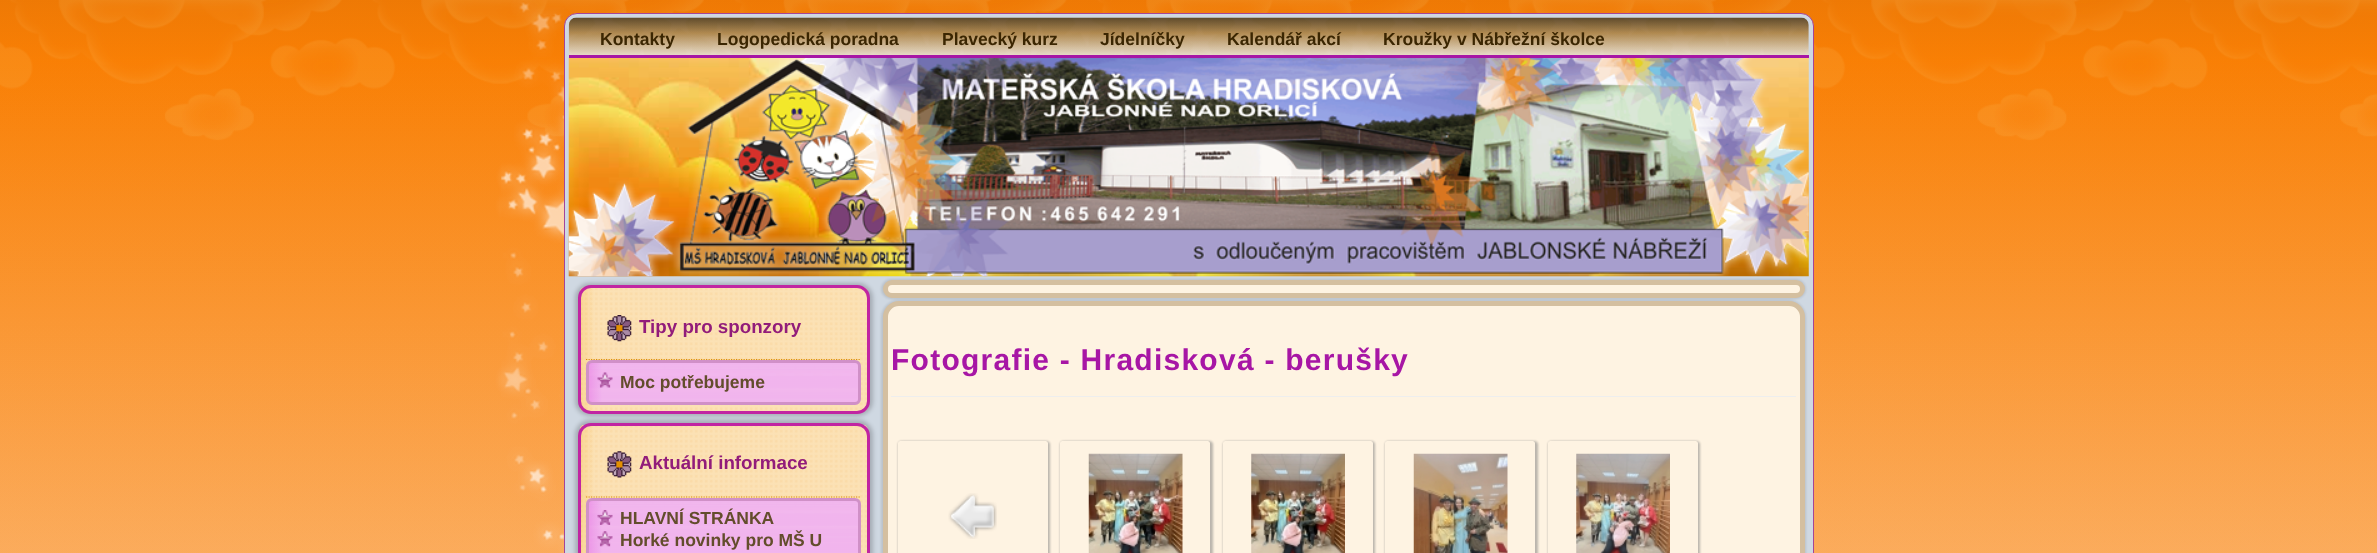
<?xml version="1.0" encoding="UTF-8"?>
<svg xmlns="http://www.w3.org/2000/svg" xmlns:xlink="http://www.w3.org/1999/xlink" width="2377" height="553">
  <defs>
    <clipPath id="clip1"><path d="M 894 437 h 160 v 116 h -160 z m 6.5 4 h 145 c 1.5 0 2.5 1 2.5 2.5 v 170 c 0 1.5 -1 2.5 -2.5 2.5 h -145 c -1.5 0 -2.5 -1 -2.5 -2.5 v -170 c 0 -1.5 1 -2.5 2.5 -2.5 z" clip-rule="evenodd" /></clipPath>
    <clipPath id="clip2"><path d="M 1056 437 h 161 v 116 h -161 z m 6.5 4 h 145 c 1.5 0 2.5 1 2.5 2.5 v 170 c 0 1.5 -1 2.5 -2.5 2.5 h -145 c -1.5 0 -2.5 -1 -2.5 -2.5 v -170 c 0 -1.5 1 -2.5 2.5 -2.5 z" clip-rule="evenodd" /></clipPath>
    <clipPath id="clip3"><path d="M 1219 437 h 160 v 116 h -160 z m 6.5 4 h 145 c 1.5 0 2.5 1 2.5 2.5 v 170 c 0 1.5 -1 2.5 -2.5 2.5 h -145 c -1.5 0 -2.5 -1 -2.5 -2.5 v -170 c 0 -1.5 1 -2.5 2.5 -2.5 z" clip-rule="evenodd" /></clipPath>
    <clipPath id="clip4"><path d="M 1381 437 h 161 v 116 h -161 z m 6.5 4 h 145 c 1.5 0 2.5 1 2.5 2.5 v 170 c 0 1.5 -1 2.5 -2.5 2.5 h -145 c -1.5 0 -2.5 -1 -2.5 -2.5 v -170 c 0 -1.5 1 -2.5 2.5 -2.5 z" clip-rule="evenodd" /></clipPath>
    <clipPath id="clip5"><path d="M 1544 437 h 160 v 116 h -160 z m 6.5 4 h 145 c 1.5 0 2.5 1 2.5 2.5 v 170 c 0 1.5 -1 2.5 -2.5 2.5 h -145 c -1.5 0 -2.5 -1 -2.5 -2.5 v -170 c 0 -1.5 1 -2.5 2.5 -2.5 z" clip-rule="evenodd" /></clipPath>
  </defs>
  <rect width="100%" height="100%" fill="#ffffff" />
  <image x="0" y="0" width="2377" height="553" xlink:href="image1.png" />
  <rect x="564.5" y="13.5" width="1249" height="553" rx="12.5" fill="#cfd8e2" stroke="#a54597" />
  <image x="568" y="17" width="1241" height="40" xlink:href="image2.png" />
  <image x="568" y="57" width="1241" height="220" xlink:href="image3.png" />
  <rect x="569" y="55" width="1240" height="3" fill="#a716a5" />
  <rect x="575" y="283" width="298" height="133" rx="15" fill="#000000" fill-opacity="0.2" filter="blur(2px)" />
  <image x="580" y="287" width="288" height="127" xlink:href="image4.png" />
  <rect x="579.5" y="286.5" width="289" height="126" rx="11.5" fill="none" stroke="#c125a2" stroke-width="3" />
  <path d="M 586 359.5 h 275" fill="none" stroke="#dc8f09" stroke-width="1.2" stroke-dasharray="1.25 1.25" />
  <image x="607" y="315" width="25" height="27" xlink:href="image5.png" />
  <image x="587" y="360" width="274" height="45" xlink:href="image6.png" />
  <rect x="587.5" y="361.5" width="272" height="42" rx="4.5" fill="none" stroke="#d090c7" stroke-width="3" />
  <image x="597" y="372" width="16" height="16" xlink:href="image7.png" />
  <rect x="575" y="420" width="298" height="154" rx="15" fill="#000000" fill-opacity="0.2" filter="blur(2px)" />
  <image x="580" y="425" width="288" height="128" xlink:href="image8.png" />
  <rect x="579.5" y="424.5" width="289" height="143" rx="11.5" fill="none" stroke="#c125a2" stroke-width="3" />
  <path d="M 586 497 h 275" fill="none" stroke="#dc8f09" stroke-width="1.2" stroke-dasharray="1.25 1.25" />
  <image x="607" y="451" width="25" height="27" xlink:href="image9.png" />
  <image x="587" y="498" width="274" height="55" xlink:href="image10.png" />
  <rect x="587.5" y="499.5" width="272" height="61" rx="4.5" fill="none" stroke="#d090c7" stroke-width="3" />
  <image x="597" y="510" width="16" height="15" xlink:href="image11.png" />
  <image x="597" y="531" width="16" height="16" xlink:href="image12.png" />
  <rect x="881" y="279" width="925" height="20" rx="10" fill="#000000" fill-opacity="0.1" filter="blur(1px)" />
  <rect x="885.5" y="282.5" width="917" height="13" rx="6.5" fill="#fef3e2" stroke="#d4bfa0" stroke-width="5" />
  <rect x="881" y="300" width="925" height="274" rx="18" fill="#000000" fill-opacity="0.1" filter="blur(1px)" />
  <rect x="885.5" y="303.5" width="917" height="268" rx="13.5" fill="#fef3e2" stroke="#d4bfa0" stroke-width="5" />
  <rect x="891" y="396" width="905" height="1" fill="#eeeeee" />
  <g clip-path="url(#clip1)">
    <rect x="898" y="441" width="152" height="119" rx="4" fill="#787878" fill-opacity="0.5" filter="blur(1px)" />
  </g>
  <image x="948" y="493" width="49" height="46" xlink:href="image13.png" />
  <g clip-path="url(#clip2)">
    <rect x="1060" y="441" width="153" height="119" rx="4" fill="#787878" fill-opacity="0.5" filter="blur(1px)" />
  </g>
  <image x="1088" y="453" width="95" height="100" xlink:href="image14.png" />
  <g clip-path="url(#clip3)">
    <rect x="1223" y="441" width="152" height="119" rx="4" fill="#787878" fill-opacity="0.5" filter="blur(1px)" />
  </g>
  <image x="1251" y="453" width="94" height="100" xlink:href="image15.png" />
  <g clip-path="url(#clip4)">
    <rect x="1385" y="441" width="153" height="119" rx="4" fill="#787878" fill-opacity="0.5" filter="blur(1px)" />
  </g>
  <image x="1413" y="453" width="95" height="100" xlink:href="image16.png" />
  <g clip-path="url(#clip5)">
    <rect x="1548" y="441" width="152" height="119" rx="4" fill="#787878" fill-opacity="0.5" filter="blur(1px)" />
  </g>
  <image x="1576" y="453" width="94" height="100" xlink:href="image17.png" />
  <text x="600" y="45" style="font-family: Liberation Sans; font-size: 17.5px; font-weight: bold; fill: #3b2602">Kontakty</text>
  <text x="717" y="45" style="font-family: Liberation Sans; font-size: 17.5px; font-weight: bold; fill: #3b2602">Logopedická poradna</text>
  <text x="942" y="45" style="font-family: Liberation Sans; font-size: 17.5px; font-weight: bold; fill: #3b2602">Plavecký kurz</text>
  <text x="1100" y="45" style="font-family: Liberation Sans; font-size: 17.5px; font-weight: bold; fill: #3b2602">Jídelníčky</text>
  <text x="1227" y="45" style="font-family: Liberation Sans; font-size: 17.5px; font-weight: bold; fill: #3b2602">Kalendář akcí</text>
  <text x="1383" y="45" style="font-family: Liberation Sans; font-size: 17.5px; font-weight: bold; fill: #3b2602">Kroužky v Nábřežní školce</text>
  <text x="639" y="333" style="font-family: Liberation Sans; font-size: 18.75px; font-weight: bold; fill: #921c7a">Tipy pro sponzory</text>
  <text x="620" y="388" style="font-family: Liberation Sans; font-size: 17.5px; font-weight: bold; fill: #634d2c">Moc potřebujeme</text>
  <text x="639" y="469" style="font-family: Liberation Sans; font-size: 18.75px; font-weight: bold; fill: #921c7a">Aktuální informace</text>
  <text x="620" y="524" style="font-family: Liberation Sans; font-size: 17.5px; font-weight: bold; fill: #634d2c">HLAVNÍ STRÁNKA</text>
  <text x="620" y="546" style="font-family: Liberation Sans; font-size: 17.5px; font-weight: bold; fill: #634d2c">Horké novinky pro MŠ U</text>
  <text x="891" y="370" style="font-family: Liberation Sans; font-size: 30px; font-weight: bold; letter-spacing: 1.25px; fill: #a716a5">Fotografie - Hradisková - berušky</text>
</svg>
